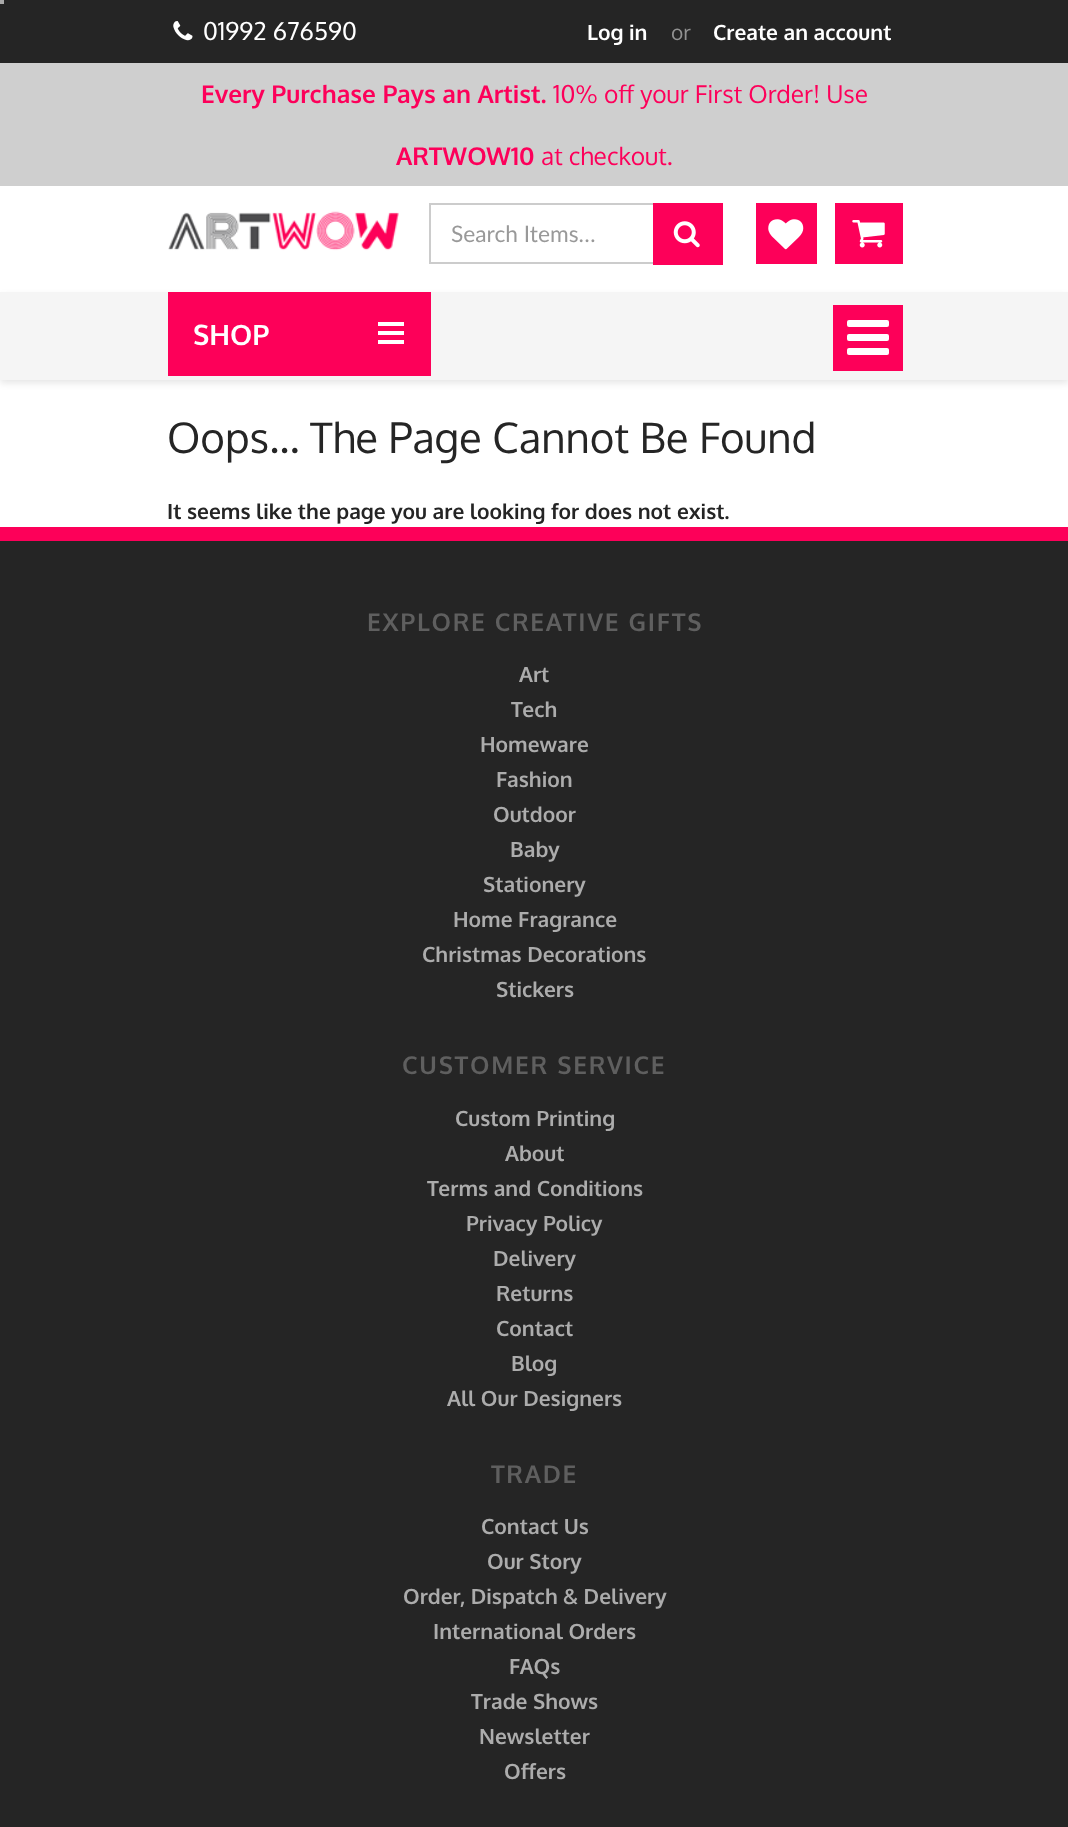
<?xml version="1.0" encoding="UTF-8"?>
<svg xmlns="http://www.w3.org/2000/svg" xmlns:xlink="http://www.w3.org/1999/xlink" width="1068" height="1827">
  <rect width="100%" height="100%" fill="#ffffff" />
  <rect width="1068" height="63" fill="#252525" />
  <rect width="4" height="4" fill="#aaaaaa" />
  <image x="173" y="21" width="20" height="20" xlink:href="image1.png" />
  <rect y="63" width="1068" height="123" fill="#cfcfcf" />
  <image x="168" y="211" width="231" height="40" xlink:href="image2.png" />
  <rect x="430" y="204" width="292" height="59" fill="none" stroke="#cccccc" stroke-width="2" />
  <rect x="653" y="203" width="70" height="62" fill="#fd0059" />
  <image x="673" y="221" width="27" height="27" xlink:href="image3.png" />
  <rect x="756" y="203" width="61" height="61" fill="#fd0059" />
  <image x="768" y="219" width="36" height="31" xlink:href="image4.png" />
  <rect x="835" y="203" width="68" height="61" fill="#fd0059" />
  <image x="852" y="220" width="33" height="28" xlink:href="image5.png" />
  <rect y="296" width="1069" height="87" fill="#000000" fill-opacity="0.1" filter="blur(3.5px)" />
  <rect y="292" width="1068" height="88" fill="#f5f5f5" />
  <rect x="168" y="292" width="263" height="84" fill="#fd0059" />
  <rect x="378" y="322" width="26" height="4" fill="#ffffff" />
  <rect x="378" y="331" width="26" height="4" fill="#ffffff" />
  <rect x="378" y="340" width="26" height="4" fill="#ffffff" />
  <rect x="833" y="305" width="70" height="66" fill="#fd0059" />
  <rect x="847" y="320" width="42" height="7" rx="2" fill="#ffffff" />
  <rect x="847" y="334" width="42" height="7" rx="2" fill="#ffffff" />
  <rect x="847" y="348" width="42" height="7" rx="2" fill="#ffffff" />
  <rect y="541" width="1068" height="1286" fill="#252525" />
  <rect y="527" width="1068" height="14" fill="#fd0059" />
  <text x="203" y="40" style="font-family: Oxygen; font-size: 24.5px; fill: #ffffff">01992 676590</text>
  <text x="587" y="40" style="font-family: Oxygen; font-size: 21px; font-weight: bold; fill: #ffffff">Log in</text>
  <text x="671" y="40" style="font-family: Oxygen; font-size: 21px; fill: #929292">or</text>
  <text x="713" y="40" style="font-family: Oxygen; font-size: 21px; font-weight: bold; fill: #ffffff">Create an account</text>
  <text x="201" y="103" style="font-family: Oxygen; font-size: 24.5px; font-weight: bold; fill: #fd005a">Every Purchase Pays an Artist.</text>
  <text x="553" y="103" style="font-family: Oxygen; font-size: 24.5px; fill: #fd005a">10% off your First Order! Use</text>
  <text x="396" y="165" style="font-family: Oxygen; font-size: 24.5px; font-weight: bold; fill: #fd005a">ARTWOW10</text>
  <text x="541" y="165" style="font-family: Oxygen; font-size: 24.5px; fill: #fd005a">at checkout.</text>
  <text x="451" y="242" style="font-family: Lato; font-size: 22.75px; fill: #999999">Search Items…</text>
  <text x="193" y="345" style="font-family: Oxygen; font-size: 28px; font-weight: bold; fill: #ffffff">SHOP</text>
  <text x="167" y="453" style="font-family: Oxygen; font-size: 42px; fill: #252525">Oops... The Page Cannot Be Found</text>
  <text x="167" y="519" style="font-family: Oxygen; font-size: 21px; font-weight: bold; fill: #252525">It seems like the page you are looking for does not exist.</text>
  <text x="367" y="631" style="font-family: Oxygen; font-size: 24.5px; font-weight: bold; letter-spacing: 1.75px; fill: #5f5f5f">EXPLORE CREATIVE GIFTS</text>
  <text x="519" y="682" style="font-family: Oxygen; font-size: 21px; font-weight: bold; fill: #acacac">Art</text>
  <text x="511" y="717" style="font-family: Oxygen; font-size: 21px; font-weight: bold; fill: #acacac">Tech</text>
  <text x="480" y="752" style="font-family: Oxygen; font-size: 21px; font-weight: bold; fill: #acacac">Homeware</text>
  <text x="496" y="787" style="font-family: Oxygen; font-size: 21px; font-weight: bold; fill: #acacac">Fashion</text>
  <text x="493" y="822" style="font-family: Oxygen; font-size: 21px; font-weight: bold; fill: #acacac">Outdoor</text>
  <text x="510" y="857" style="font-family: Oxygen; font-size: 21px; font-weight: bold; fill: #acacac">Baby</text>
  <text x="483" y="892" style="font-family: Oxygen; font-size: 21px; font-weight: bold; fill: #acacac">Stationery</text>
  <text x="453" y="927" style="font-family: Oxygen; font-size: 21px; font-weight: bold; fill: #acacac">Home Fragrance</text>
  <text x="422" y="962" style="font-family: Oxygen; font-size: 21px; font-weight: bold; fill: #acacac">Christmas Decorations</text>
  <text x="496" y="997" style="font-family: Oxygen; font-size: 21px; font-weight: bold; fill: #acacac">Stickers</text>
  <text x="402" y="1074" style="font-family: Oxygen; font-size: 24.5px; font-weight: bold; letter-spacing: 1.75px; fill: #5f5f5f">CUSTOMER SERVICE</text>
  <text x="455" y="1126" style="font-family: Oxygen; font-size: 21px; font-weight: bold; fill: #acacac">Custom Printing</text>
  <text x="505" y="1161" style="font-family: Oxygen; font-size: 21px; font-weight: bold; fill: #acacac">About</text>
  <text x="427" y="1196" style="font-family: Oxygen; font-size: 21px; font-weight: bold; fill: #acacac">Terms and Conditions</text>
  <text x="466" y="1231" style="font-family: Oxygen; font-size: 21px; font-weight: bold; fill: #acacac">Privacy Policy</text>
  <text x="493" y="1266" style="font-family: Oxygen; font-size: 21px; font-weight: bold; fill: #acacac">Delivery</text>
  <text x="496" y="1301" style="font-family: Oxygen; font-size: 21px; font-weight: bold; fill: #acacac">Returns</text>
  <text x="496" y="1336" style="font-family: Oxygen; font-size: 21px; font-weight: bold; fill: #acacac">Contact</text>
  <text x="511" y="1371" style="font-family: Oxygen; font-size: 21px; font-weight: bold; fill: #acacac">Blog</text>
  <text x="447" y="1406" style="font-family: Oxygen; font-size: 21px; font-weight: bold; fill: #acacac">All Our Designers</text>
  <text x="491" y="1483" style="font-family: Oxygen; font-size: 24.5px; font-weight: bold; letter-spacing: 1.75px; fill: #5f5f5f">TRADE</text>
  <text x="481" y="1534" style="font-family: Oxygen; font-size: 21px; font-weight: bold; fill: #acacac">Contact Us</text>
  <text x="487" y="1569" style="font-family: Oxygen; font-size: 21px; font-weight: bold; fill: #acacac">Our Story</text>
  <text x="403" y="1604" style="font-family: Oxygen; font-size: 21px; font-weight: bold; fill: #acacac">Order, Dispatch &amp; Delivery</text>
  <text x="433" y="1639" style="font-family: Oxygen; font-size: 21px; font-weight: bold; fill: #acacac">International Orders</text>
  <text x="509" y="1674" style="font-family: Oxygen; font-size: 21px; font-weight: bold; fill: #acacac">FAQs</text>
  <text x="471" y="1709" style="font-family: Oxygen; font-size: 21px; font-weight: bold; fill: #acacac">Trade Shows</text>
  <text x="479" y="1744" style="font-family: Oxygen; font-size: 21px; font-weight: bold; fill: #acacac">Newsletter</text>
  <text x="504" y="1779" style="font-family: Oxygen; font-size: 21px; font-weight: bold; fill: #acacac">Offers</text>
</svg>
